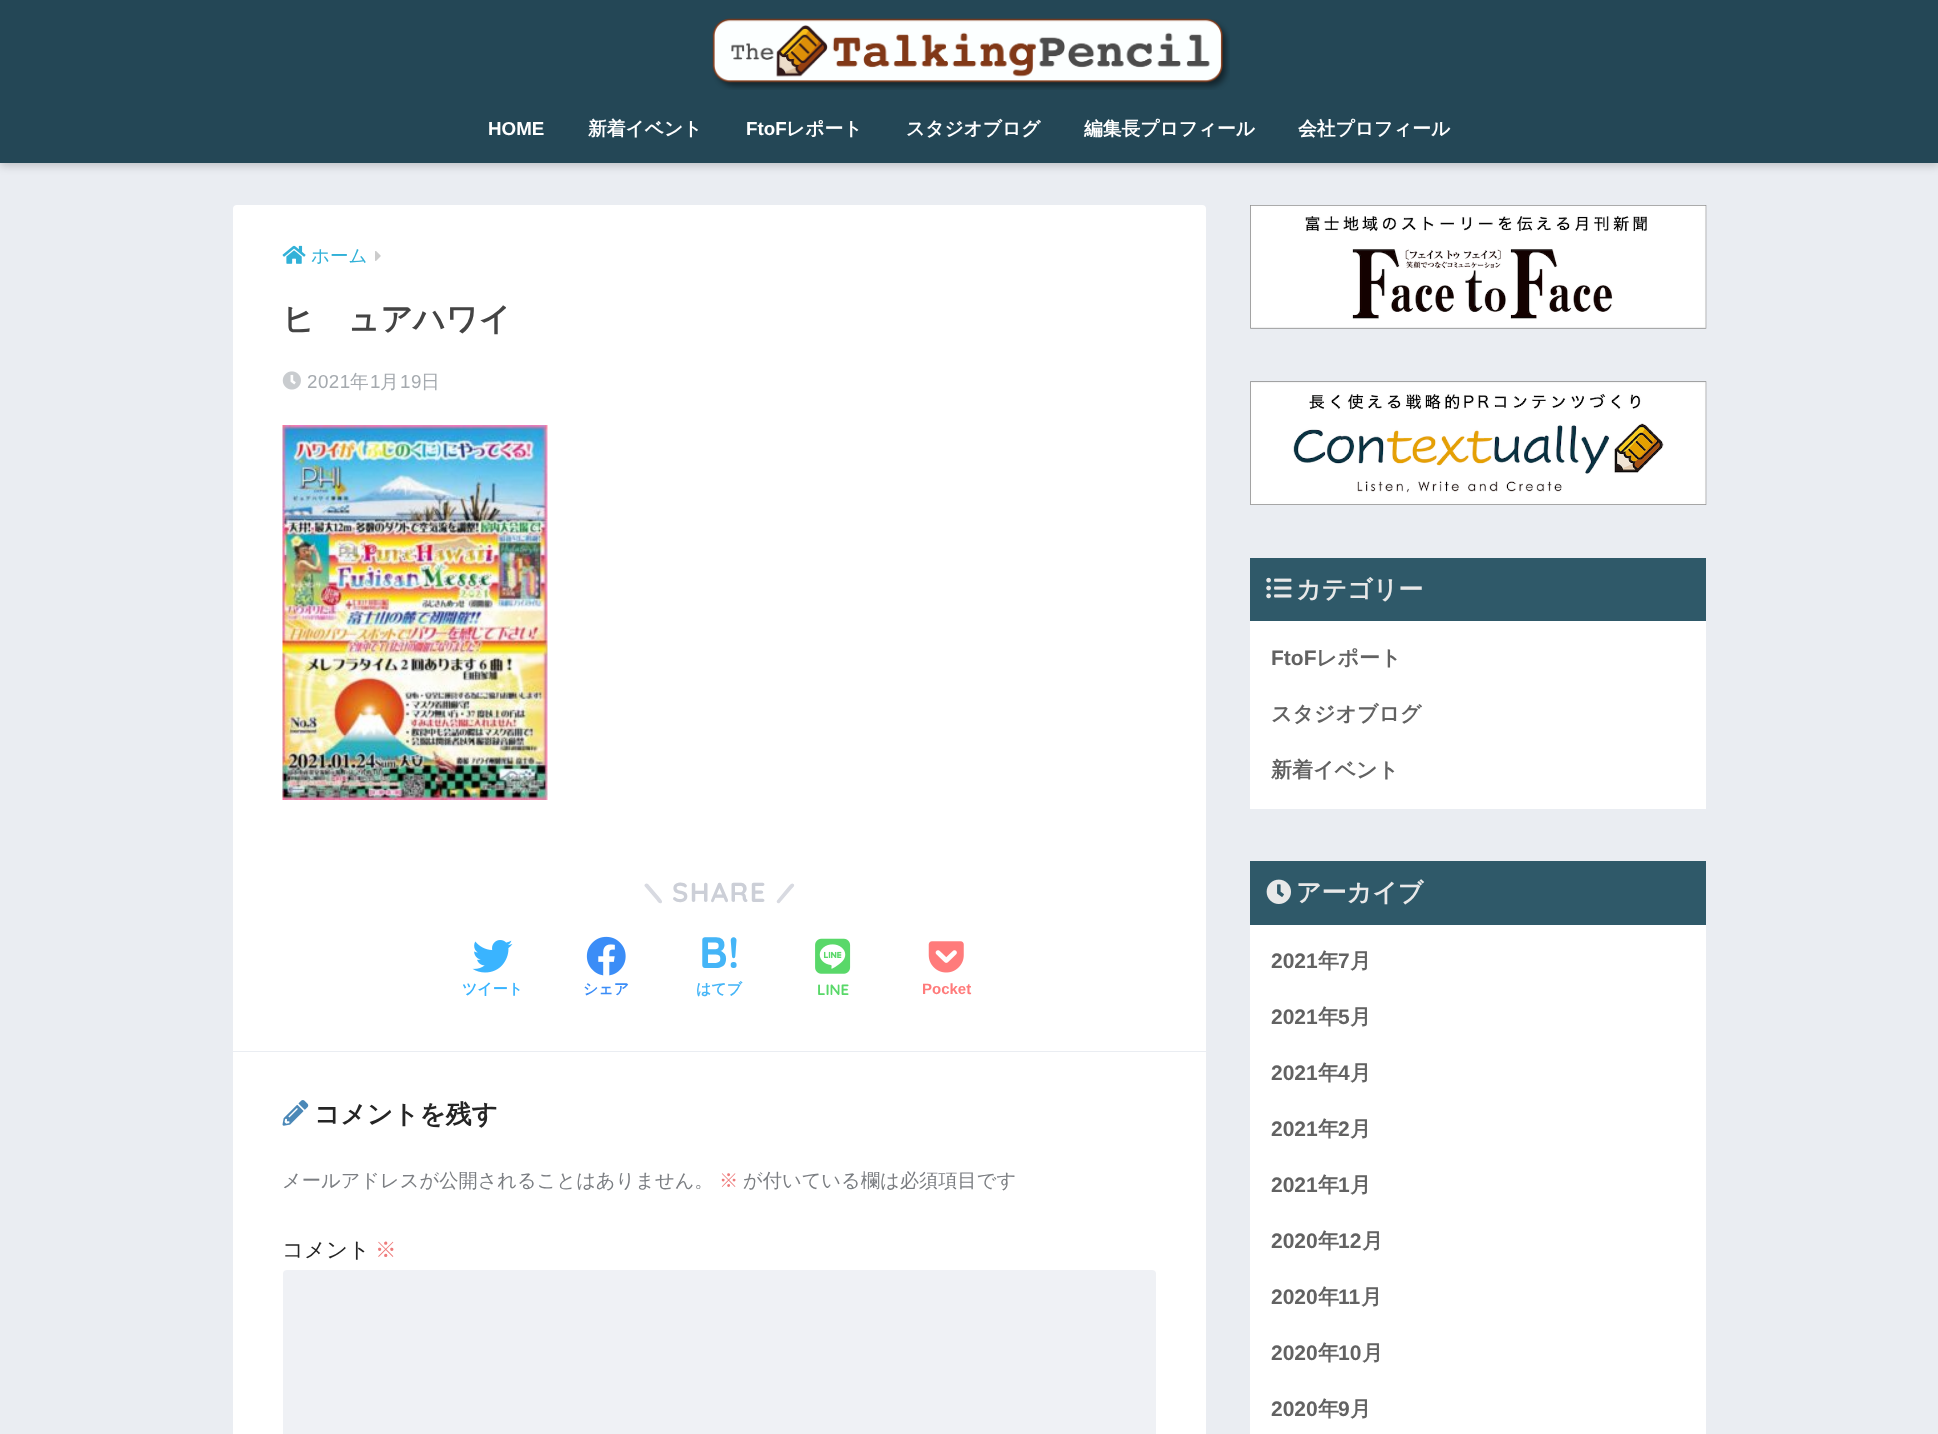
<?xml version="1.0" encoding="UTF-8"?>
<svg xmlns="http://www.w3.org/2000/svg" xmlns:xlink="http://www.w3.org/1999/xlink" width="1938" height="1434">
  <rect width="100%" height="100%" fill="#eaedf2" />
  <rect y="4" width="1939" height="162" fill="#000000" fill-opacity="0.18" filter="blur(4px)" />
  <rect width="1938" height="163" fill="#244756" />
  <image x="712" y="18" width="518" height="72" xlink:href="image1.png" />
  <rect x="233" y="205" width="973" height="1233" rx="4" fill="#ffffff" />
  <image x="282" y="245" width="24" height="19" xlink:href="image2.png" />
  <image x="375" y="251" width="6" height="10" xlink:href="image3.png" />
  <image x="282" y="371" width="19" height="19" xlink:href="image4.png" />
  <image x="282" y="425" width="266" height="375" xlink:href="image5.png" />
  <path d="M 648 884 l 11.5 13.5 c 0.5 1 4 3.5 2 5.5 c -2 1.5 -4.5 -2 -5 -3 l -12 -14 c -0.5 -2 2 -3.5 3.5 -2 z" fill="#d8dae1" />
  <path d="M 777 900.5 l 11.5 -14 c 1 -1 3 -4.5 5 -2.5 c 2 1.5 -1 4 -2 5 l -12 14 c -2 1 -3.5 -1 -2.5 -2.5 z" fill="#d8dae1" />
  <image x="472" y="940" width="41" height="33" xlink:href="image6.png" />
  <image x="586" y="936" width="40" height="40" xlink:href="image7.png" />
  <image x="815" y="938" width="36" height="36" xlink:href="image8.png" />
  <image x="928" y="941" width="36" height="32" xlink:href="image9.png" />
  <rect x="233" y="1051" width="973" height="1" fill="#eaedf2" />
  <image x="282" y="1100" width="27" height="26" xlink:href="image10.png" />
  <rect x="283" y="1270" width="873" height="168" rx="4" fill="#eff1f5" />
  <image x="1250" y="205" width="457" height="124" xlink:href="image11.png" />
  <image x="1250" y="381" width="457" height="124" xlink:href="image12.png" />
  <rect x="1250" y="621" width="456" height="188" fill="#ffffff" />
  <rect x="1250" y="558" width="456" height="63" fill="#2f5969" />
  <image x="1266" y="577" width="26" height="22" xlink:href="image13.png" />
  <rect x="1250" y="925" width="456" height="509" fill="#ffffff" />
  <rect x="1250" y="861" width="456" height="64" fill="#2f5969" />
  <image x="1266" y="879" width="25" height="25" xlink:href="image14.png" />
  <text x="488" y="135" style="font-family: Liberation Sans; font-size: 18.75px; font-weight: bold; fill: #ffffff">HOME</text>
  <text x="588" y="135" style="font-family: WenQuanYi Zen Hei; font-size: 18.75px; font-weight: bold; fill: #ffffff">新着イベント</text>
  <text x="746" y="135" style="font-family: Liberation Sans; font-size: 18.75px; font-weight: bold; fill: #ffffff">FtoF</text>
  <text x="786" y="135" style="font-family: WenQuanYi Zen Hei; font-size: 18.75px; font-weight: bold; fill: #ffffff">レポート</text>
  <text x="906" y="135" style="font-family: WenQuanYi Zen Hei; font-size: 18.75px; font-weight: bold; fill: #ffffff">スタジオブログ</text>
  <text x="1084" y="135" style="font-family: WenQuanYi Zen Hei; font-size: 18.75px; font-weight: bold; fill: #ffffff">編集長プロフィール</text>
  <text x="1298" y="135" style="font-family: WenQuanYi Zen Hei; font-size: 18.75px; font-weight: bold; fill: #ffffff">会社プロフィール</text>
  <text x="311" y="262" style="font-family: WenQuanYi Zen Hei; font-size: 18.5px; font-weight: 500; fill: #31b1d8">ホーム</text>
  <text x="282" y="330" style="font-family: WenQuanYi Zen Hei; font-size: 32px; font-weight: bold; fill: #444444">ピュアハワイ</text>
  <text x="307" y="388" style="font-family: Liberation Sans; font-size: 18.75px; letter-spacing: 0.5px; fill: #a5aaaf">2021</text>
  <text x="350" y="388" style="font-family: WenQuanYi Zen Hei; font-size: 18.75px; font-weight: 500; letter-spacing: 0.5px; fill: #a5aaaf">年</text>
  <text x="370" y="388" style="font-family: Liberation Sans; font-size: 18.75px; letter-spacing: 0.5px; fill: #a5aaaf">1</text>
  <text x="380" y="388" style="font-family: WenQuanYi Zen Hei; font-size: 18.75px; font-weight: 500; letter-spacing: 0.5px; fill: #a5aaaf">月</text>
  <text x="400" y="388" style="font-family: Liberation Sans; font-size: 18.75px; letter-spacing: 0.5px; fill: #a5aaaf">19</text>
  <text x="421" y="388" style="font-family: WenQuanYi Zen Hei; font-size: 18.75px; font-weight: 500; letter-spacing: 0.5px; fill: #a5aaaf">日</text>
  <text x="672" y="902" style="font-family: Quicksand; font-size: 27.5px; font-weight: bold; letter-spacing: 1.25px; fill: #cccfd7">SHARE</text>
  <text x="462" y="994" style="font-family: WenQuanYi Zen Hei; font-size: 15px; font-weight: bold; fill: #3ab4ff">ツイート</text>
  <text x="583" y="994" style="font-family: WenQuanYi Zen Hei; font-size: 15px; font-weight: bold; fill: #3b8df7">シェア</text>
  <text x="699" y="968" style="font-family: Quicksand; font-size: 44px; font-weight: bold; fill: #45b5f7">B!</text>
  <text x="696" y="994" style="font-family: WenQuanYi Zen Hei; font-size: 15px; font-weight: bold; fill: #45b5f7">はてブ</text>
  <text x="817" y="995" style="font-family: Quicksand; font-size: 15px; font-weight: bold; fill: #59d869">LINE</text>
  <text x="922" y="994" style="font-family: Liberation Sans; font-size: 15px; font-weight: bold; fill: #ff7b7b">Pocket</text>
  <text x="314" y="1123" style="font-family: WenQuanYi Zen Hei; font-size: 25.75px; font-weight: bold; fill: #252525">コメントを残す</text>
  <text x="282" y="1187" style="font-family: WenQuanYi Zen Hei; font-size: 19.25px; font-weight: 500; fill: #7b7e82">メールアドレスが公開されることはありません。</text>
  <text x="719" y="1187" style="font-family: WenQuanYi Zen Hei; font-size: 19.25px; font-weight: 500; fill: #ee7b7b">※</text>
  <text x="743" y="1187" style="font-family: WenQuanYi Zen Hei; font-size: 19.25px; font-weight: 500; fill: #7b7e82">が付いている欄は必須項目です</text>
  <text x="282" y="1257" style="font-family: WenQuanYi Zen Hei; font-size: 21.5px; font-weight: 500; fill: #252525">コメント</text>
  <text x="375" y="1257" style="font-family: WenQuanYi Zen Hei; font-size: 21.5px; font-weight: 500; fill: #ee7b7b">※</text>
  <text x="1296" y="598" style="font-family: WenQuanYi Zen Hei; font-size: 25px; font-weight: bold; fill: #e8e8e8">カテゴリー</text>
  <text x="1271" y="665" style="font-family: Liberation Sans; font-size: 21px; font-weight: bold; fill: #626262">FtoF</text>
  <text x="1316" y="665" style="font-family: WenQuanYi Zen Hei; font-size: 21px; font-weight: bold; fill: #626262">レポート</text>
  <text x="1271" y="721" style="font-family: WenQuanYi Zen Hei; font-size: 21px; font-weight: bold; fill: #626262">スタジオブログ</text>
  <text x="1271" y="777" style="font-family: WenQuanYi Zen Hei; font-size: 21px; font-weight: bold; fill: #626262">新着イベント</text>
  <text x="1296" y="901" style="font-family: WenQuanYi Zen Hei; font-size: 25px; font-weight: bold; fill: #e8e8e8">アーカイブ</text>
  <text x="1271" y="968" style="font-family: Liberation Sans; font-size: 21px; font-weight: bold; fill: #626262">2021</text>
  <text x="1318" y="968" style="font-family: WenQuanYi Zen Hei; font-size: 21px; font-weight: bold; fill: #626262">年</text>
  <text x="1338" y="968" style="font-family: Liberation Sans; font-size: 21px; font-weight: bold; fill: #626262">7</text>
  <text x="1350" y="968" style="font-family: WenQuanYi Zen Hei; font-size: 21px; font-weight: bold; fill: #626262">月</text>
  <text x="1271" y="1024" style="font-family: Liberation Sans; font-size: 21px; font-weight: bold; fill: #626262">2021</text>
  <text x="1318" y="1024" style="font-family: WenQuanYi Zen Hei; font-size: 21px; font-weight: bold; fill: #626262">年</text>
  <text x="1338" y="1024" style="font-family: Liberation Sans; font-size: 21px; font-weight: bold; fill: #626262">5</text>
  <text x="1350" y="1024" style="font-family: WenQuanYi Zen Hei; font-size: 21px; font-weight: bold; fill: #626262">月</text>
  <text x="1271" y="1080" style="font-family: Liberation Sans; font-size: 21px; font-weight: bold; fill: #626262">2021</text>
  <text x="1318" y="1080" style="font-family: WenQuanYi Zen Hei; font-size: 21px; font-weight: bold; fill: #626262">年</text>
  <text x="1338" y="1080" style="font-family: Liberation Sans; font-size: 21px; font-weight: bold; fill: #626262">4</text>
  <text x="1350" y="1080" style="font-family: WenQuanYi Zen Hei; font-size: 21px; font-weight: bold; fill: #626262">月</text>
  <text x="1271" y="1136" style="font-family: Liberation Sans; font-size: 21px; font-weight: bold; fill: #626262">2021</text>
  <text x="1318" y="1136" style="font-family: WenQuanYi Zen Hei; font-size: 21px; font-weight: bold; fill: #626262">年</text>
  <text x="1338" y="1136" style="font-family: Liberation Sans; font-size: 21px; font-weight: bold; fill: #626262">2</text>
  <text x="1350" y="1136" style="font-family: WenQuanYi Zen Hei; font-size: 21px; font-weight: bold; fill: #626262">月</text>
  <text x="1271" y="1192" style="font-family: Liberation Sans; font-size: 21px; font-weight: bold; fill: #626262">2021</text>
  <text x="1318" y="1192" style="font-family: WenQuanYi Zen Hei; font-size: 21px; font-weight: bold; fill: #626262">年</text>
  <text x="1338" y="1192" style="font-family: Liberation Sans; font-size: 21px; font-weight: bold; fill: #626262">1</text>
  <text x="1350" y="1192" style="font-family: WenQuanYi Zen Hei; font-size: 21px; font-weight: bold; fill: #626262">月</text>
  <text x="1271" y="1248" style="font-family: Liberation Sans; font-size: 21px; font-weight: bold; fill: #626262">2020</text>
  <text x="1318" y="1248" style="font-family: WenQuanYi Zen Hei; font-size: 21px; font-weight: bold; fill: #626262">年</text>
  <text x="1338" y="1248" style="font-family: Liberation Sans; font-size: 21px; font-weight: bold; fill: #626262">12</text>
  <text x="1362" y="1248" style="font-family: WenQuanYi Zen Hei; font-size: 21px; font-weight: bold; fill: #626262">月</text>
  <text x="1271" y="1304" style="font-family: Liberation Sans; font-size: 21px; font-weight: bold; fill: #626262">2020</text>
  <text x="1318" y="1304" style="font-family: WenQuanYi Zen Hei; font-size: 21px; font-weight: bold; fill: #626262">年</text>
  <text x="1338" y="1304" style="font-family: Liberation Sans; font-size: 21px; font-weight: bold; fill: #626262">11</text>
  <text x="1361" y="1304" style="font-family: WenQuanYi Zen Hei; font-size: 21px; font-weight: bold; fill: #626262">月</text>
  <text x="1271" y="1360" style="font-family: Liberation Sans; font-size: 21px; font-weight: bold; fill: #626262">2020</text>
  <text x="1318" y="1360" style="font-family: WenQuanYi Zen Hei; font-size: 21px; font-weight: bold; fill: #626262">年</text>
  <text x="1338" y="1360" style="font-family: Liberation Sans; font-size: 21px; font-weight: bold; fill: #626262">10</text>
  <text x="1362" y="1360" style="font-family: WenQuanYi Zen Hei; font-size: 21px; font-weight: bold; fill: #626262">月</text>
  <text x="1271" y="1416" style="font-family: Liberation Sans; font-size: 21px; font-weight: bold; fill: #626262">2020</text>
  <text x="1318" y="1416" style="font-family: WenQuanYi Zen Hei; font-size: 21px; font-weight: bold; fill: #626262">年</text>
  <text x="1338" y="1416" style="font-family: Liberation Sans; font-size: 21px; font-weight: bold; fill: #626262">9</text>
  <text x="1350" y="1416" style="font-family: WenQuanYi Zen Hei; font-size: 21px; font-weight: bold; fill: #626262">月</text>
</svg>
